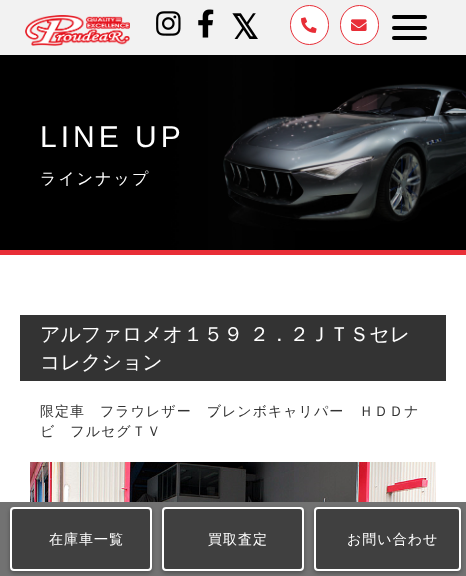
<?xml version="1.0" encoding="UTF-8"?>
<svg xmlns="http://www.w3.org/2000/svg" xmlns:xlink="http://www.w3.org/1999/xlink" width="466" height="576">
  <rect width="100%" height="100%" fill="#f2f2f2" />
  <image x="25" y="15" width="105" height="31" xlink:href="image1.png" />
  <image x="156" y="11" width="25" height="25" xlink:href="image2.png" />
  <image x="198" y="9" width="16" height="29" xlink:href="image3.png" />
  <rect x="290.5" y="5.5" width="38" height="39" rx="19" fill="#ffffff" stroke="#e82e37" />
  <image x="301" y="17" width="16" height="16" xlink:href="image4.png" />
  <rect x="340.5" y="5.5" width="38" height="39" rx="19" fill="#ffffff" stroke="#e82e37" />
  <image x="351" y="19" width="16" height="12" xlink:href="image5.png" />
  <rect x="392" y="26" width="35" height="4" rx="2" fill="#000000" />
  <rect x="392" y="15" width="35" height="4" rx="2" fill="#000000" />
  <rect x="392" y="36" width="35" height="4" rx="2" fill="#000000" />
  <rect y="255" width="466" height="247" fill="#ffffff" />
  <image x="0" y="55" width="466" height="195" xlink:href="image6.png" />
  <rect y="250" width="466" height="5" fill="#e82e37" />
  <rect x="20" y="315" width="426" height="66" fill="#333333" />
  <image x="30" y="462" width="406" height="40" xlink:href="image7.png" />
  <rect y="502" width="466" height="74" fill="#727272" />
  <rect x="10" y="509" width="142" height="64" rx="4" fill="#000000" fill-opacity="0.3" filter="blur(2px)" />
  <rect x="11" y="508" width="140" height="62" rx="3" fill="none" stroke="#ffffff" stroke-width="2" />
  <rect x="12" y="509" width="138" height="60" rx="4" fill="#404040" />
  <rect x="162" y="509" width="142" height="64" rx="4" fill="#000000" fill-opacity="0.3" filter="blur(2px)" />
  <rect x="163" y="508" width="140" height="62" rx="3" fill="none" stroke="#ffffff" stroke-width="2" />
  <rect x="164" y="509" width="138" height="60" rx="4" fill="#404040" />
  <rect x="314" y="509" width="147" height="64" rx="4" fill="#000000" fill-opacity="0.3" filter="blur(2px)" />
  <rect x="315" y="508" width="145" height="62" rx="3" fill="none" stroke="#ffffff" stroke-width="2" />
  <rect x="316" y="509" width="143" height="60" rx="4" fill="#404040" />
  <text x="231" y="39" style="font-family: DejaVu Sans; font-size: 34px; font-weight: bold; letter-spacing: 1px; fill: #000000">𝕏</text>
  <text x="40" y="147" style="font-family: Liberation Sans; font-size: 30px; letter-spacing: 4px; fill: #ffffff">LINE UP</text>
  <text x="40" y="184" style="font-family: WenQuanYi Zen Hei; font-size: 16px; font-weight: 500; letter-spacing: 2px; fill: #ffffff">ラインナップ</text>
  <text x="40" y="341" style="font-family: WenQuanYi Zen Hei; font-size: 20px; font-weight: 500; fill: #ffffff">アルファロメオ１５９ ２．２ＪＴＳセレ</text>
  <text x="40" y="369" style="font-family: WenQuanYi Zen Hei; font-size: 20px; font-weight: 500; fill: #ffffff">コレクション</text>
  <text x="40" y="416" style="font-family: WenQuanYi Zen Hei; font-size: 14px; font-weight: 500; letter-spacing: 1px; fill: #333333">限定車　フラウレザー　ブレンボキャリパー　ＨＤＤナ</text>
  <text x="40" y="436" style="font-family: WenQuanYi Zen Hei; font-size: 14px; font-weight: 500; letter-spacing: 1px; fill: #333333">ビ　フルセグＴＶ</text>
  <text x="49" y="544" style="font-family: WenQuanYi Zen Hei; font-size: 14px; font-weight: 500; letter-spacing: 1px; fill: #ffffff">在庫車一覧</text>
  <text x="208" y="544" style="font-family: WenQuanYi Zen Hei; font-size: 14px; font-weight: 500; letter-spacing: 1px; fill: #ffffff">買取査定</text>
  <text x="347" y="544" style="font-family: WenQuanYi Zen Hei; font-size: 14px; font-weight: 500; letter-spacing: 1px; fill: #ffffff">お問い合わせ</text>
</svg>
